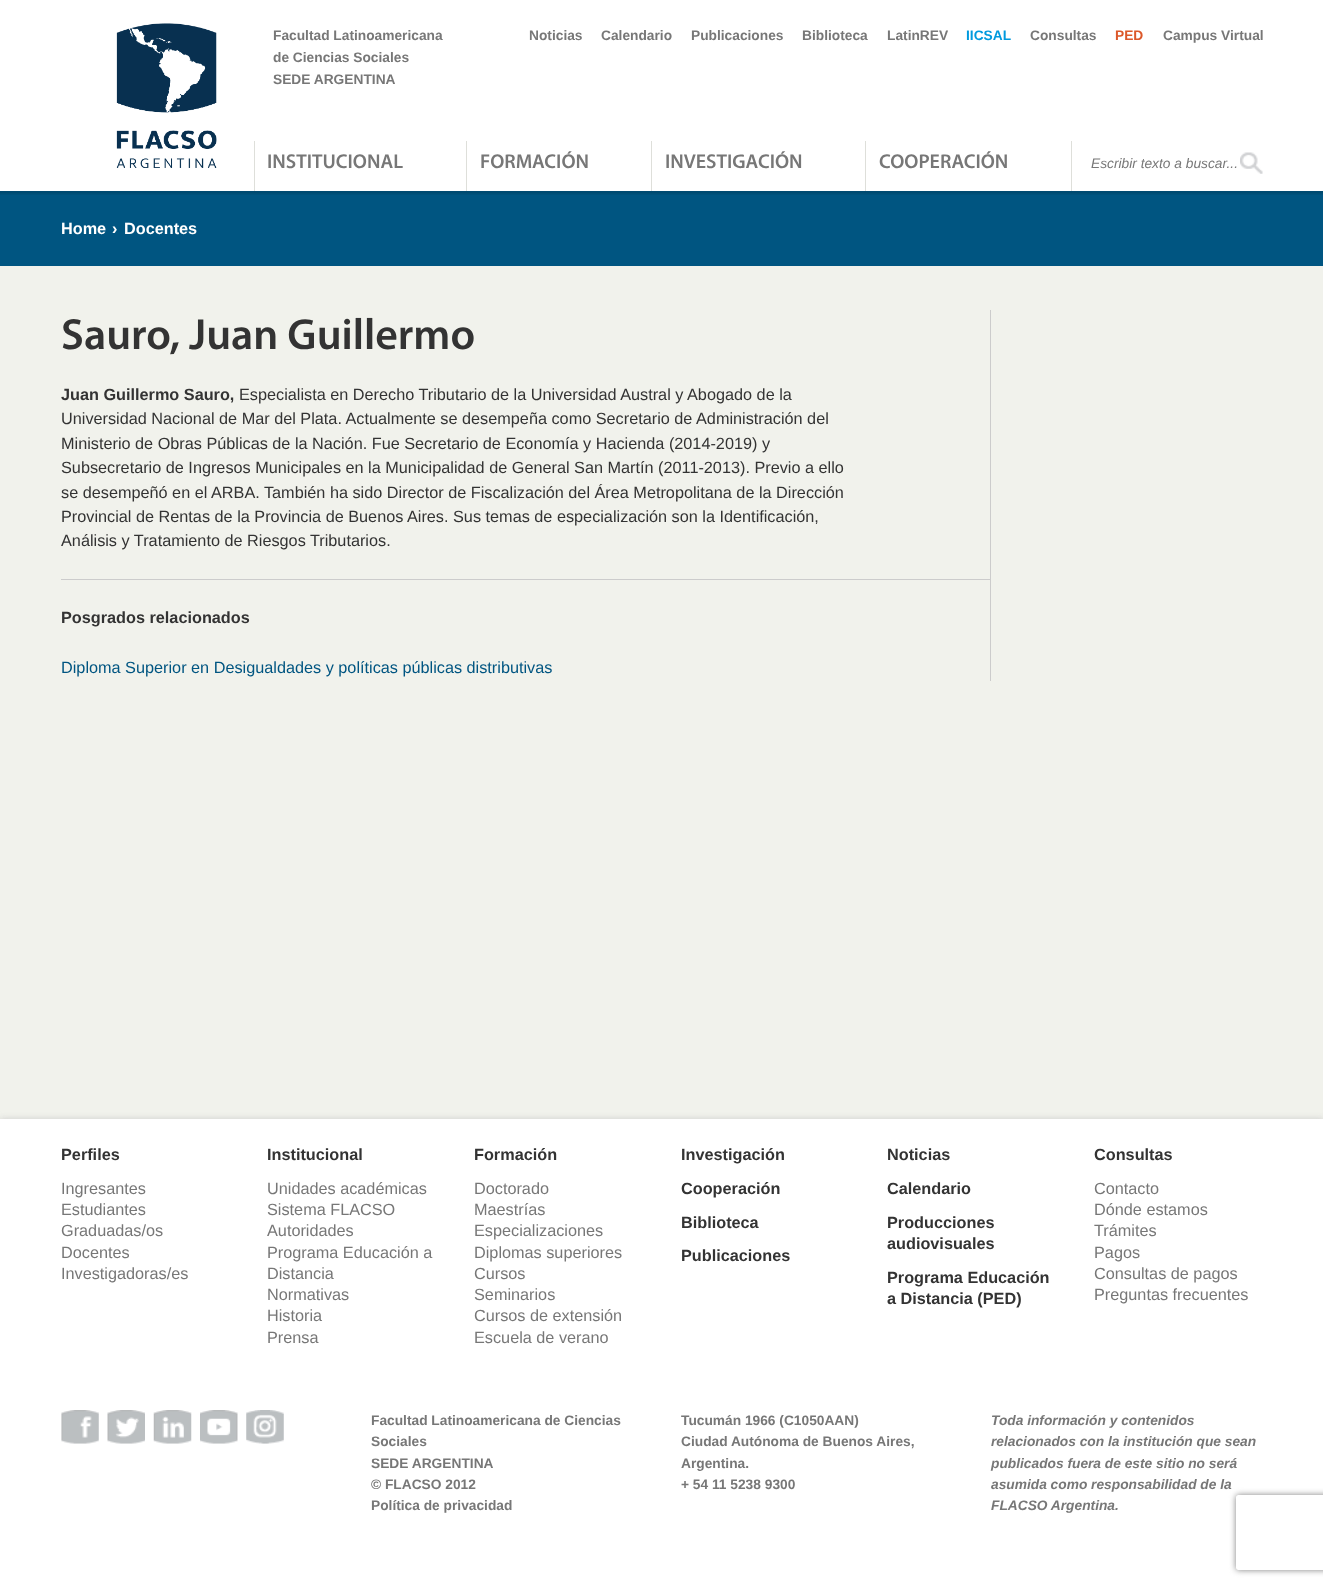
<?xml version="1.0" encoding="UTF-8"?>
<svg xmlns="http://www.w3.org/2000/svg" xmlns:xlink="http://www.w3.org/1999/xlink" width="1323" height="1587">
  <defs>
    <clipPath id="clip1"><path d="M 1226 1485 h 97 v 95 h -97 z m 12.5 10 h 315 c 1.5 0 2.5 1 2.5 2.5 v 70 c 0 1.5 -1 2.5 -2.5 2.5 h -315 c -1.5 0 -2.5 -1 -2.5 -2.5 v -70 c 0 -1.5 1 -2.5 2.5 -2.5 z" clip-rule="evenodd" /></clipPath>
  </defs>
  <rect width="100%" height="100%" fill="#f1f2ec" />
  <rect width="1323" height="191" fill="#ffffff" />
  <image x="116" y="23" width="101" height="145" xlink:href="image1.png" />
  <rect x="254" y="141" width="1" height="50" fill="#dedfda" />
  <rect x="466" y="141" width="1" height="50" fill="#dedfda" />
  <rect x="651" y="141" width="1" height="50" fill="#dedfda" />
  <rect x="865" y="141" width="1" height="50" fill="#dedfda" />
  <rect x="1071" y="141" width="1" height="50" fill="#dedfda" />
  <image x="1240" y="152" width="23" height="22" xlink:href="image2.png" />
  <rect y="191" width="1323" height="75" fill="#005581" />
  <image x="0" y="191" width="1323" height="4" xlink:href="image3.png" />
  <rect x="61" y="579" width="930" height="1" fill="#cccccc" />
  <rect x="990" y="310" width="1" height="371" fill="#cccccc" />
  <rect y="1119" width="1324" height="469" fill="#cccccc" filter="blur(3px)" />
  <rect y="1119" width="1323" height="468" fill="#ffffff" />
  <image x="61" y="1410" width="38" height="34" xlink:href="image4.png" />
  <image x="107" y="1410" width="38" height="34" xlink:href="image5.png" />
  <image x="153" y="1410" width="39" height="34" xlink:href="image6.png" />
  <image x="200" y="1410" width="38" height="34" xlink:href="image7.png" />
  <image x="246" y="1410" width="38" height="34" xlink:href="image8.png" />
  <g clip-path="url(#clip1)">
    <rect x="1236" y="1495" width="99" height="75" rx="2.5" fill="#808080" filter="blur(3px)" />
  </g>
  <text x="273" y="40" style="font-family: Liberation Sans; font-size: 13.75px; font-weight: bold; fill: #777777">Facultad Latinoamericana</text>
  <text x="273" y="62" style="font-family: Liberation Sans; font-size: 13.75px; font-weight: bold; fill: #777777">de Ciencias Sociales</text>
  <text x="273" y="84" style="font-family: Liberation Sans; font-size: 13.75px; font-weight: bold; fill: #777777">SEDE ARGENTINA</text>
  <text x="529" y="40" style="font-family: Liberation Sans; font-size: 13.75px; font-weight: bold; fill: #777777">Noticias</text>
  <text x="601" y="40" style="font-family: Liberation Sans; font-size: 13.75px; font-weight: bold; fill: #777777">Calendario</text>
  <text x="691" y="40" style="font-family: Liberation Sans; font-size: 13.75px; font-weight: bold; fill: #777777">Publicaciones</text>
  <text x="802" y="40" style="font-family: Liberation Sans; font-size: 13.75px; font-weight: bold; fill: #777777">Biblioteca</text>
  <text x="887" y="40" style="font-family: Liberation Sans; font-size: 13.75px; font-weight: bold; fill: #777777">LatinREV</text>
  <text x="966" y="40" style="font-family: Liberation Sans; font-size: 13.75px; font-weight: bold; fill: #009ade">IICSAL</text>
  <text x="1030" y="40" style="font-family: Liberation Sans; font-size: 13.75px; font-weight: bold; fill: #777777">Consultas</text>
  <text x="1115" y="40" style="font-family: Liberation Sans; font-size: 13.75px; font-weight: bold; fill: #dc582a">PED</text>
  <text x="1163" y="40" style="font-family: Liberation Sans; font-size: 13.75px; font-weight: bold; fill: #777777">Campus Virtual</text>
  <text x="267" y="168" style="font-family: myriad; font-size: 20px; font-weight: 600; fill: #777777">INSTITUCIONAL</text>
  <text x="480" y="168" style="font-family: myriad; font-size: 20px; font-weight: 600; fill: #777777">FORMACIÓN</text>
  <text x="665" y="168" style="font-family: myriad; font-size: 20px; font-weight: 600; fill: #777777">INVESTIGACIÓN</text>
  <text x="879" y="168" style="font-family: myriad; font-size: 20px; font-weight: 600; fill: #777777">COOPERACIÓN</text>
  <text x="1091" y="168" style="font-family: Liberation Sans; font-size: 13.75px; font-style: italic; fill: #777777">Escribir texto a buscar...</text>
  <text x="61" y="234" style="font-family: Liberation Sans; font-size: 16.25px; font-weight: bold; fill: #ffffff">Home</text>
  <text x="112" y="234" style="font-family: Liberation Sans; font-size: 16.25px; font-weight: bold; fill: #ffffff">›</text>
  <text x="124" y="234" style="font-family: Liberation Sans; font-size: 16.25px; font-weight: bold; fill: #ffffff">Docentes</text>
  <text x="61" y="349" style="font-family: myriad; font-size: 43.75px; font-weight: 600; fill: #333333">Sauro, Juan Guillermo</text>
  <text x="61" y="400" style="font-family: Liberation Sans; font-size: 16.25px; font-weight: bold; fill: #333333">Juan Guillermo Sauro,</text>
  <text x="239" y="400" style="font-family: Liberation Sans; font-size: 16.25px; fill: #333333">Especialista en Derecho Tributario de la Universidad Austral y Abogado de la</text>
  <text x="61" y="424" style="font-family: Liberation Sans; font-size: 16.25px; fill: #333333">Universidad Nacional de Mar del Plata. Actualmente se desempeña como Secretario de Administración del</text>
  <text x="61" y="449" style="font-family: Liberation Sans; font-size: 16.25px; fill: #333333">Ministerio de Obras Públicas de la Nación. Fue Secretario de Economía y Hacienda (2014-2019) y</text>
  <text x="61" y="473" style="font-family: Liberation Sans; font-size: 16.25px; fill: #333333">Subsecretario de Ingresos Municipales en la Municipalidad de General San Martín (2011-2013). Previo a ello</text>
  <text x="61" y="498" style="font-family: Liberation Sans; font-size: 16.25px; fill: #333333">se desempeñó en el ARBA. También ha sido Director de Fiscalización del Área Metropolitana de la Dirección</text>
  <text x="61" y="522" style="font-family: Liberation Sans; font-size: 16.25px; fill: #333333">Provincial de Rentas de la Provincia de Buenos Aires. Sus temas de especialización son la Identificación,</text>
  <text x="61" y="546" style="font-family: Liberation Sans; font-size: 16.25px; fill: #333333">Análisis y Tratamiento de Riesgos Tributarios.</text>
  <text x="61" y="623" style="font-family: Liberation Sans; font-size: 16.25px; font-weight: bold; fill: #333333">Posgrados relacionados</text>
  <text x="61" y="673" style="font-family: Liberation Sans; font-size: 16.25px; fill: #005581">Diploma Superior en Desigualdades y políticas públicas distributivas</text>
  <text x="61" y="1160" style="font-family: Liberation Sans; font-size: 16.25px; font-weight: bold; fill: #333333">Perfiles</text>
  <text x="61" y="1194" style="font-family: Liberation Sans; font-size: 16.25px; fill: #777777">Ingresantes</text>
  <text x="61" y="1215" style="font-family: Liberation Sans; font-size: 16.25px; fill: #777777">Estudiantes</text>
  <text x="61" y="1236" style="font-family: Liberation Sans; font-size: 16.25px; fill: #777777">Graduadas/os</text>
  <text x="61" y="1258" style="font-family: Liberation Sans; font-size: 16.25px; fill: #777777">Docentes</text>
  <text x="61" y="1279" style="font-family: Liberation Sans; font-size: 16.25px; fill: #777777">Investigadoras/es</text>
  <text x="267" y="1160" style="font-family: Liberation Sans; font-size: 16.25px; font-weight: bold; fill: #333333">Institucional</text>
  <text x="267" y="1194" style="font-family: Liberation Sans; font-size: 16.25px; fill: #777777">Unidades académicas</text>
  <text x="267" y="1215" style="font-family: Liberation Sans; font-size: 16.25px; fill: #777777">Sistema FLACSO</text>
  <text x="267" y="1236" style="font-family: Liberation Sans; font-size: 16.25px; fill: #777777">Autoridades</text>
  <text x="267" y="1258" style="font-family: Liberation Sans; font-size: 16.25px; fill: #777777">Programa Educación a</text>
  <text x="267" y="1279" style="font-family: Liberation Sans; font-size: 16.25px; fill: #777777">Distancia</text>
  <text x="267" y="1300" style="font-family: Liberation Sans; font-size: 16.25px; fill: #777777">Normativas</text>
  <text x="267" y="1321" style="font-family: Liberation Sans; font-size: 16.25px; fill: #777777">Historia</text>
  <text x="267" y="1343" style="font-family: Liberation Sans; font-size: 16.25px; fill: #777777">Prensa</text>
  <text x="474" y="1160" style="font-family: Liberation Sans; font-size: 16.25px; font-weight: bold; fill: #333333">Formación</text>
  <text x="474" y="1194" style="font-family: Liberation Sans; font-size: 16.25px; fill: #777777">Doctorado</text>
  <text x="474" y="1215" style="font-family: Liberation Sans; font-size: 16.25px; fill: #777777">Maestrías</text>
  <text x="474" y="1236" style="font-family: Liberation Sans; font-size: 16.25px; fill: #777777">Especializaciones</text>
  <text x="474" y="1258" style="font-family: Liberation Sans; font-size: 16.25px; fill: #777777">Diplomas superiores</text>
  <text x="474" y="1279" style="font-family: Liberation Sans; font-size: 16.25px; fill: #777777">Cursos</text>
  <text x="474" y="1300" style="font-family: Liberation Sans; font-size: 16.25px; fill: #777777">Seminarios</text>
  <text x="474" y="1321" style="font-family: Liberation Sans; font-size: 16.25px; fill: #777777">Cursos de extensión</text>
  <text x="474" y="1343" style="font-family: Liberation Sans; font-size: 16.25px; fill: #777777">Escuela de verano</text>
  <text x="681" y="1160" style="font-family: Liberation Sans; font-size: 16.25px; font-weight: bold; fill: #333333">Investigación</text>
  <text x="681" y="1194" style="font-family: Liberation Sans; font-size: 16.25px; font-weight: bold; fill: #333333">Cooperación</text>
  <text x="681" y="1228" style="font-family: Liberation Sans; font-size: 16.25px; font-weight: bold; fill: #333333">Biblioteca</text>
  <text x="681" y="1261" style="font-family: Liberation Sans; font-size: 16.25px; font-weight: bold; fill: #333333">Publicaciones</text>
  <text x="887" y="1160" style="font-family: Liberation Sans; font-size: 16.25px; font-weight: bold; fill: #333333">Noticias</text>
  <text x="887" y="1194" style="font-family: Liberation Sans; font-size: 16.25px; font-weight: bold; fill: #333333">Calendario</text>
  <text x="887" y="1228" style="font-family: Liberation Sans; font-size: 16.25px; font-weight: bold; fill: #333333">Producciones</text>
  <text x="887" y="1249" style="font-family: Liberation Sans; font-size: 16.25px; font-weight: bold; fill: #333333">audiovisuales</text>
  <text x="887" y="1283" style="font-family: Liberation Sans; font-size: 16.25px; font-weight: bold; fill: #333333">Programa Educación</text>
  <text x="887" y="1304" style="font-family: Liberation Sans; font-size: 16.25px; font-weight: bold; fill: #333333">a Distancia (PED)</text>
  <text x="1094" y="1160" style="font-family: Liberation Sans; font-size: 16.25px; font-weight: bold; fill: #333333">Consultas</text>
  <text x="1094" y="1194" style="font-family: Liberation Sans; font-size: 16.25px; fill: #777777">Contacto</text>
  <text x="1094" y="1215" style="font-family: Liberation Sans; font-size: 16.25px; fill: #777777">Dónde estamos</text>
  <text x="1094" y="1236" style="font-family: Liberation Sans; font-size: 16.25px; fill: #777777">Trámites</text>
  <text x="1094" y="1258" style="font-family: Liberation Sans; font-size: 16.25px; fill: #777777">Pagos</text>
  <text x="1094" y="1279" style="font-family: Liberation Sans; font-size: 16.25px; fill: #777777">Consultas de pagos</text>
  <text x="1094" y="1300" style="font-family: Liberation Sans; font-size: 16.25px; fill: #777777">Preguntas frecuentes</text>
  <text x="371" y="1425" style="font-family: Liberation Sans; font-size: 13.75px; font-weight: bold; fill: #777777">Facultad Latinoamericana de Ciencias</text>
  <text x="371" y="1446" style="font-family: Liberation Sans; font-size: 13.75px; font-weight: bold; fill: #777777">Sociales</text>
  <text x="371" y="1468" style="font-family: Liberation Sans; font-size: 13.75px; font-weight: bold; fill: #777777">SEDE ARGENTINA</text>
  <text x="371" y="1489" style="font-family: Liberation Sans; font-size: 13.75px; font-weight: bold; fill: #777777">© FLACSO 2012</text>
  <text x="371" y="1510" style="font-family: Liberation Sans; font-size: 13.75px; font-weight: bold; fill: #777777">Política de privacidad</text>
  <text x="681" y="1425" style="font-family: Liberation Sans; font-size: 13.75px; font-weight: bold; fill: #777777">Tucumán 1966 (C1050AAN)</text>
  <text x="681" y="1446" style="font-family: Liberation Sans; font-size: 13.75px; font-weight: bold; fill: #777777">Ciudad Autónoma de Buenos Aires,</text>
  <text x="681" y="1468" style="font-family: Liberation Sans; font-size: 13.75px; font-weight: bold; fill: #777777">Argentina.</text>
  <text x="681" y="1489" style="font-family: Liberation Sans; font-size: 13.75px; font-weight: bold; fill: #777777">+ 54 11 5238 9300</text>
  <text x="991" y="1425" style="font-family: Liberation Sans; font-size: 13.75px; font-weight: bold; font-style: italic; fill: #777777">Toda información y contenidos</text>
  <text x="991" y="1446" style="font-family: Liberation Sans; font-size: 13.75px; font-weight: bold; font-style: italic; fill: #777777">relacionados con la institución que sean</text>
  <text x="991" y="1468" style="font-family: Liberation Sans; font-size: 13.75px; font-weight: bold; font-style: italic; fill: #777777">publicados fuera de este sitio no será</text>
  <text x="991" y="1489" style="font-family: Liberation Sans; font-size: 13.75px; font-weight: bold; font-style: italic; fill: #777777">asumida como responsabilidad de la</text>
  <text x="991" y="1510" style="font-family: Liberation Sans; font-size: 13.75px; font-weight: bold; font-style: italic; fill: #777777">FLACSO Argentina.</text>
</svg>
